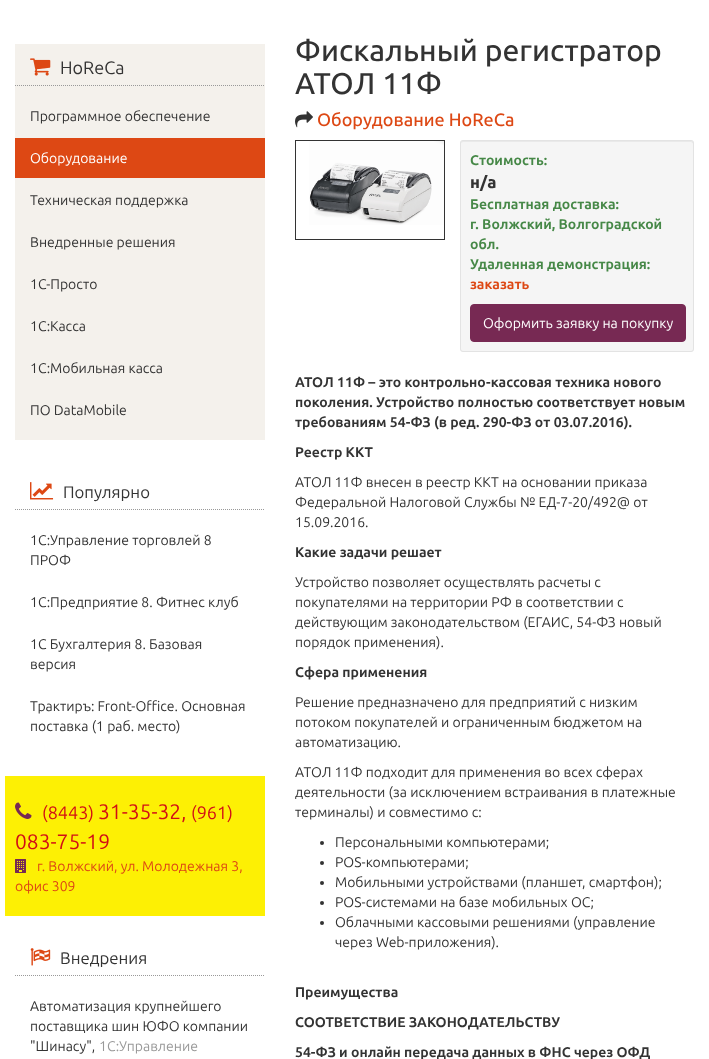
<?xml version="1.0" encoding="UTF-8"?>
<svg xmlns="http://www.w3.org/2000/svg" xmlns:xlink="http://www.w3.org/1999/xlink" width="709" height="1059">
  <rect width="100%" height="100%" fill="#ffffff" />
  <rect x="15" y="44" width="250" height="396" fill="#f4f1ec" />
  <path d="M 15 85.5 h 250" fill="none" stroke="#999999" stroke-dasharray="1 1" />
  <image x="30" y="58" width="21" height="18" xlink:href="image1.png" />
  <rect x="15" y="138" width="250" height="40" fill="#dd4814" />
  <path d="M 15 509.5 h 250" fill="none" stroke="#999999" stroke-dasharray="1 1" />
  <image x="30" y="482" width="24" height="18" xlink:href="image2.png" />
  <rect x="5" y="776" width="260" height="140" fill="#fdf004" />
  <image x="15" y="802" width="17" height="17" xlink:href="image3.png" />
  <image x="15" y="859" width="11" height="14" xlink:href="image4.png" />
  <path d="M 15 975.5 h 250" fill="none" stroke="#999999" stroke-dasharray="1 1" />
  <image x="30" y="948" width="21" height="18" xlink:href="image5.png" />
  <image x="295" y="111" width="18" height="17" xlink:href="image6.png" />
  <rect x="295.5" y="140.5" width="149" height="99" fill="none" stroke="#333333" />
  <image x="309" y="141" width="135" height="84" xlink:href="image7.png" />
  <rect x="460" y="140" width="234" height="212" rx="3" fill="#f5f5f5" />
  <path d="M 463 142 h 228 c 1 0 2 1 2 2 v -2 l -2 -1 h -228 c -2 0 -2 2 -2 3 c 0 -1 1 -2 2 -2 z" fill="#e9e9e9" />
  <rect x="460.5" y="140.5" width="233" height="211" rx="2.5" fill="none" stroke="#e3e3e3" />
  <rect x="470.5" y="304.5" width="215" height="37" rx="3.5" fill="#772953" stroke="#772953" />
  <circle cx="322" cy="843" r="2" fill="#333333" />
  <circle cx="322" cy="863" r="2" fill="#333333" />
  <circle cx="322" cy="883" r="2" fill="#333333" />
  <circle cx="322" cy="903" r="2" fill="#333333" />
  <circle cx="322" cy="923" r="2" fill="#333333" />
  <text x="60" y="74" style="font-family: Ubuntu; font-size: 18px; fill: #333333">HoReCa</text>
  <text x="30" y="121" style="font-family: Ubuntu; font-size: 14px; fill: #333333">Программное обеспечение</text>
  <text x="30" y="163" style="font-family: Ubuntu; font-size: 14px; fill: #ffffff">Оборудование</text>
  <text x="30" y="205" style="font-family: Ubuntu; font-size: 14px; fill: #333333">Техническая поддержка</text>
  <text x="30" y="247" style="font-family: Ubuntu; font-size: 14px; fill: #333333">Внедренные решения</text>
  <text x="30" y="289" style="font-family: Ubuntu; font-size: 14px; fill: #333333">1С-Просто</text>
  <text x="30" y="331" style="font-family: Ubuntu; font-size: 14px; fill: #333333">1С:Касса</text>
  <text x="30" y="373" style="font-family: Ubuntu; font-size: 14px; fill: #333333">1С:Мобильная касса</text>
  <text x="30" y="415" style="font-family: Ubuntu; font-size: 14px; fill: #333333">ПО DataMobile</text>
  <text x="63" y="498" style="font-family: Ubuntu; font-size: 16.75px; fill: #333333">Популярно</text>
  <text x="30" y="545" style="font-family: Ubuntu; font-size: 14px; fill: #333333">1С:Управление торговлей 8</text>
  <text x="30" y="565" style="font-family: Ubuntu; font-size: 14px; fill: #333333">ПРОФ</text>
  <text x="30" y="607" style="font-family: Ubuntu; font-size: 14px; fill: #333333">1C:Предприятие 8. Фитнес клуб</text>
  <text x="30" y="649" style="font-family: Ubuntu; font-size: 14px; fill: #333333">1С Бухгалтерия 8. Базовая</text>
  <text x="30" y="669" style="font-family: Ubuntu; font-size: 14px; fill: #333333">версия</text>
  <text x="30" y="711" style="font-family: Ubuntu; font-size: 14px; fill: #333333">Трактиръ: Front-Office. Основная</text>
  <text x="30" y="731" style="font-family: Ubuntu; font-size: 14px; fill: #333333">поставка (1 раб. место)</text>
  <text x="42" y="819" style="font-family: Ubuntu; font-size: 18px; fill: #d20d16">(8443)</text>
  <text x="98" y="819" style="font-family: Ubuntu; font-size: 21px; fill: #d20d16">31-35-32,</text>
  <text x="191" y="819" style="font-family: Ubuntu; font-size: 18px; fill: #d20d16">(961)</text>
  <text x="15" y="849" style="font-family: Ubuntu; font-size: 21px; fill: #d20d16">083-75-19</text>
  <text x="37" y="871" style="font-family: Ubuntu; font-size: 14px; fill: #dd4814">г. Волжский, ул. Молодежная 3,</text>
  <text x="15" y="891" style="font-family: Ubuntu; font-size: 14px; fill: #dd4814">офис 309</text>
  <text x="60" y="964" style="font-family: Ubuntu; font-size: 16.75px; fill: #333333">Внедрения</text>
  <text x="30" y="1011" style="font-family: Ubuntu; font-size: 14px; fill: #333333">Автоматизация крупнейшего</text>
  <text x="30" y="1031" style="font-family: Ubuntu; font-size: 14px; fill: #333333">поставщика шин ЮФО компании</text>
  <text x="30" y="1051" style="font-family: Ubuntu; font-size: 14px; fill: #333333">"Шинасу",</text>
  <text x="99" y="1051" style="font-family: Ubuntu; font-size: 14px; fill: #999999">1С:Управление</text>
  <text x="295" y="61" style="font-family: Ubuntu; font-size: 30px; font-weight: 500; fill: #333333">Фискальный регистратор</text>
  <text x="295" y="94" style="font-family: Ubuntu; font-size: 30px; font-weight: 500; fill: #333333">АТОЛ 11Ф</text>
  <text x="317" y="126" style="font-family: Ubuntu; font-size: 18px; font-weight: 500; fill: #dd4814">Оборудование HoReCa</text>
  <text x="470" y="165" style="font-family: Ubuntu; font-size: 14px; font-weight: bold; fill: #468847">Стоимость:</text>
  <text x="470" y="188" style="font-family: Ubuntu; font-size: 16.75px; font-weight: 800; fill: #333333">н/a</text>
  <text x="470" y="209" style="font-family: Ubuntu; font-size: 14px; font-weight: bold; fill: #468847">Бесплатная доставка:</text>
  <text x="470" y="229" style="font-family: Ubuntu; font-size: 14px; font-weight: bold; fill: #468847">г. Волжский, Волгоградской</text>
  <text x="470" y="249" style="font-family: Ubuntu; font-size: 14px; font-weight: bold; fill: #468847">обл.</text>
  <text x="470" y="269" style="font-family: Ubuntu; font-size: 14px; font-weight: bold; fill: #468847">Удаленная демонстрация:</text>
  <text x="470" y="289" style="font-family: Ubuntu; font-size: 14px; font-weight: bold; fill: #dd4814">заказать</text>
  <text x="483" y="328" style="font-family: Ubuntu; font-size: 14px; fill: #ffffff">Оформить заявку на покупку</text>
  <text x="295" y="387" style="font-family: Ubuntu; font-size: 14px; font-weight: bold; fill: #333333">АТОЛ 11Ф – это контрольно-кассовая техника нового</text>
  <text x="295" y="407" style="font-family: Ubuntu; font-size: 14px; font-weight: bold; fill: #333333">поколения. Устройство полностью соответствует новым</text>
  <text x="295" y="427" style="font-family: Ubuntu; font-size: 14px; font-weight: bold; fill: #333333">требованиям 54-ФЗ (в ред. 290-ФЗ от 03.07.2016).</text>
  <text x="295" y="457" style="font-family: Ubuntu; font-size: 14px; font-weight: bold; fill: #333333">Реестр ККТ</text>
  <text x="295" y="487" style="font-family: Ubuntu; font-size: 14px; fill: #333333">АТОЛ 11Ф внесен в реестр ККТ на основании приказа</text>
  <text x="295" y="507" style="font-family: Ubuntu; font-size: 14px; fill: #333333">Федеральной Налоговой Службы № ЕД-7-20/492@ от</text>
  <text x="295" y="527" style="font-family: Ubuntu; font-size: 14px; fill: #333333">15.09.2016.</text>
  <text x="295" y="557" style="font-family: Ubuntu; font-size: 14px; font-weight: bold; fill: #333333">Какие задачи решает</text>
  <text x="295" y="587" style="font-family: Ubuntu; font-size: 14px; fill: #333333">Устройство позволяет осуществлять расчеты с</text>
  <text x="295" y="607" style="font-family: Ubuntu; font-size: 14px; fill: #333333">покупателями на территории РФ в соответствии с</text>
  <text x="295" y="627" style="font-family: Ubuntu; font-size: 14px; fill: #333333">действующим законодательством (ЕГАИС, 54-ФЗ новый</text>
  <text x="295" y="647" style="font-family: Ubuntu; font-size: 14px; fill: #333333">порядок применения).</text>
  <text x="295" y="677" style="font-family: Ubuntu; font-size: 14px; font-weight: bold; fill: #333333">Сфера применения</text>
  <text x="295" y="707" style="font-family: Ubuntu; font-size: 14px; fill: #333333">Решение предназначено для предприятий с низким</text>
  <text x="295" y="727" style="font-family: Ubuntu; font-size: 14px; fill: #333333">потоком покупателей и ограниченным бюджетом на</text>
  <text x="295" y="747" style="font-family: Ubuntu; font-size: 14px; fill: #333333">автоматизацию.</text>
  <text x="295" y="777" style="font-family: Ubuntu; font-size: 14px; fill: #333333">АТОЛ 11Ф подходит для применения во всех сферах</text>
  <text x="295" y="797" style="font-family: Ubuntu; font-size: 14px; fill: #333333">деятельности (за исключением встраивания в платежные</text>
  <text x="295" y="817" style="font-family: Ubuntu; font-size: 14px; fill: #333333">терминалы) и совместимо с:</text>
  <text x="335" y="847" style="font-family: Ubuntu; font-size: 14px; fill: #333333">Персональными компьютерами;</text>
  <text x="335" y="867" style="font-family: Ubuntu; font-size: 14px; fill: #333333">POS-компьютерами;</text>
  <text x="335" y="887" style="font-family: Ubuntu; font-size: 14px; fill: #333333">Мобильными устройствами (планшет, смартфон);</text>
  <text x="335" y="907" style="font-family: Ubuntu; font-size: 14px; fill: #333333">POS-системами на базе мобильных ОС;</text>
  <text x="335" y="927" style="font-family: Ubuntu; font-size: 14px; fill: #333333">Облачными кассовыми решениями (управление</text>
  <text x="335" y="947" style="font-family: Ubuntu; font-size: 14px; fill: #333333">через Web-приложения).</text>
  <text x="295" y="997" style="font-family: Ubuntu; font-size: 14px; font-weight: bold; fill: #333333">Преимущества</text>
  <text x="295" y="1027" style="font-family: Ubuntu; font-size: 14px; font-weight: bold; fill: #333333">СООТВЕТСТВИЕ ЗАКОНОДАТЕЛЬСТВУ</text>
  <text x="295" y="1057" style="font-family: Ubuntu; font-size: 14px; font-weight: bold; fill: #333333">54-ФЗ и онлайн передача данных в ФНС через ОФД</text>
</svg>
